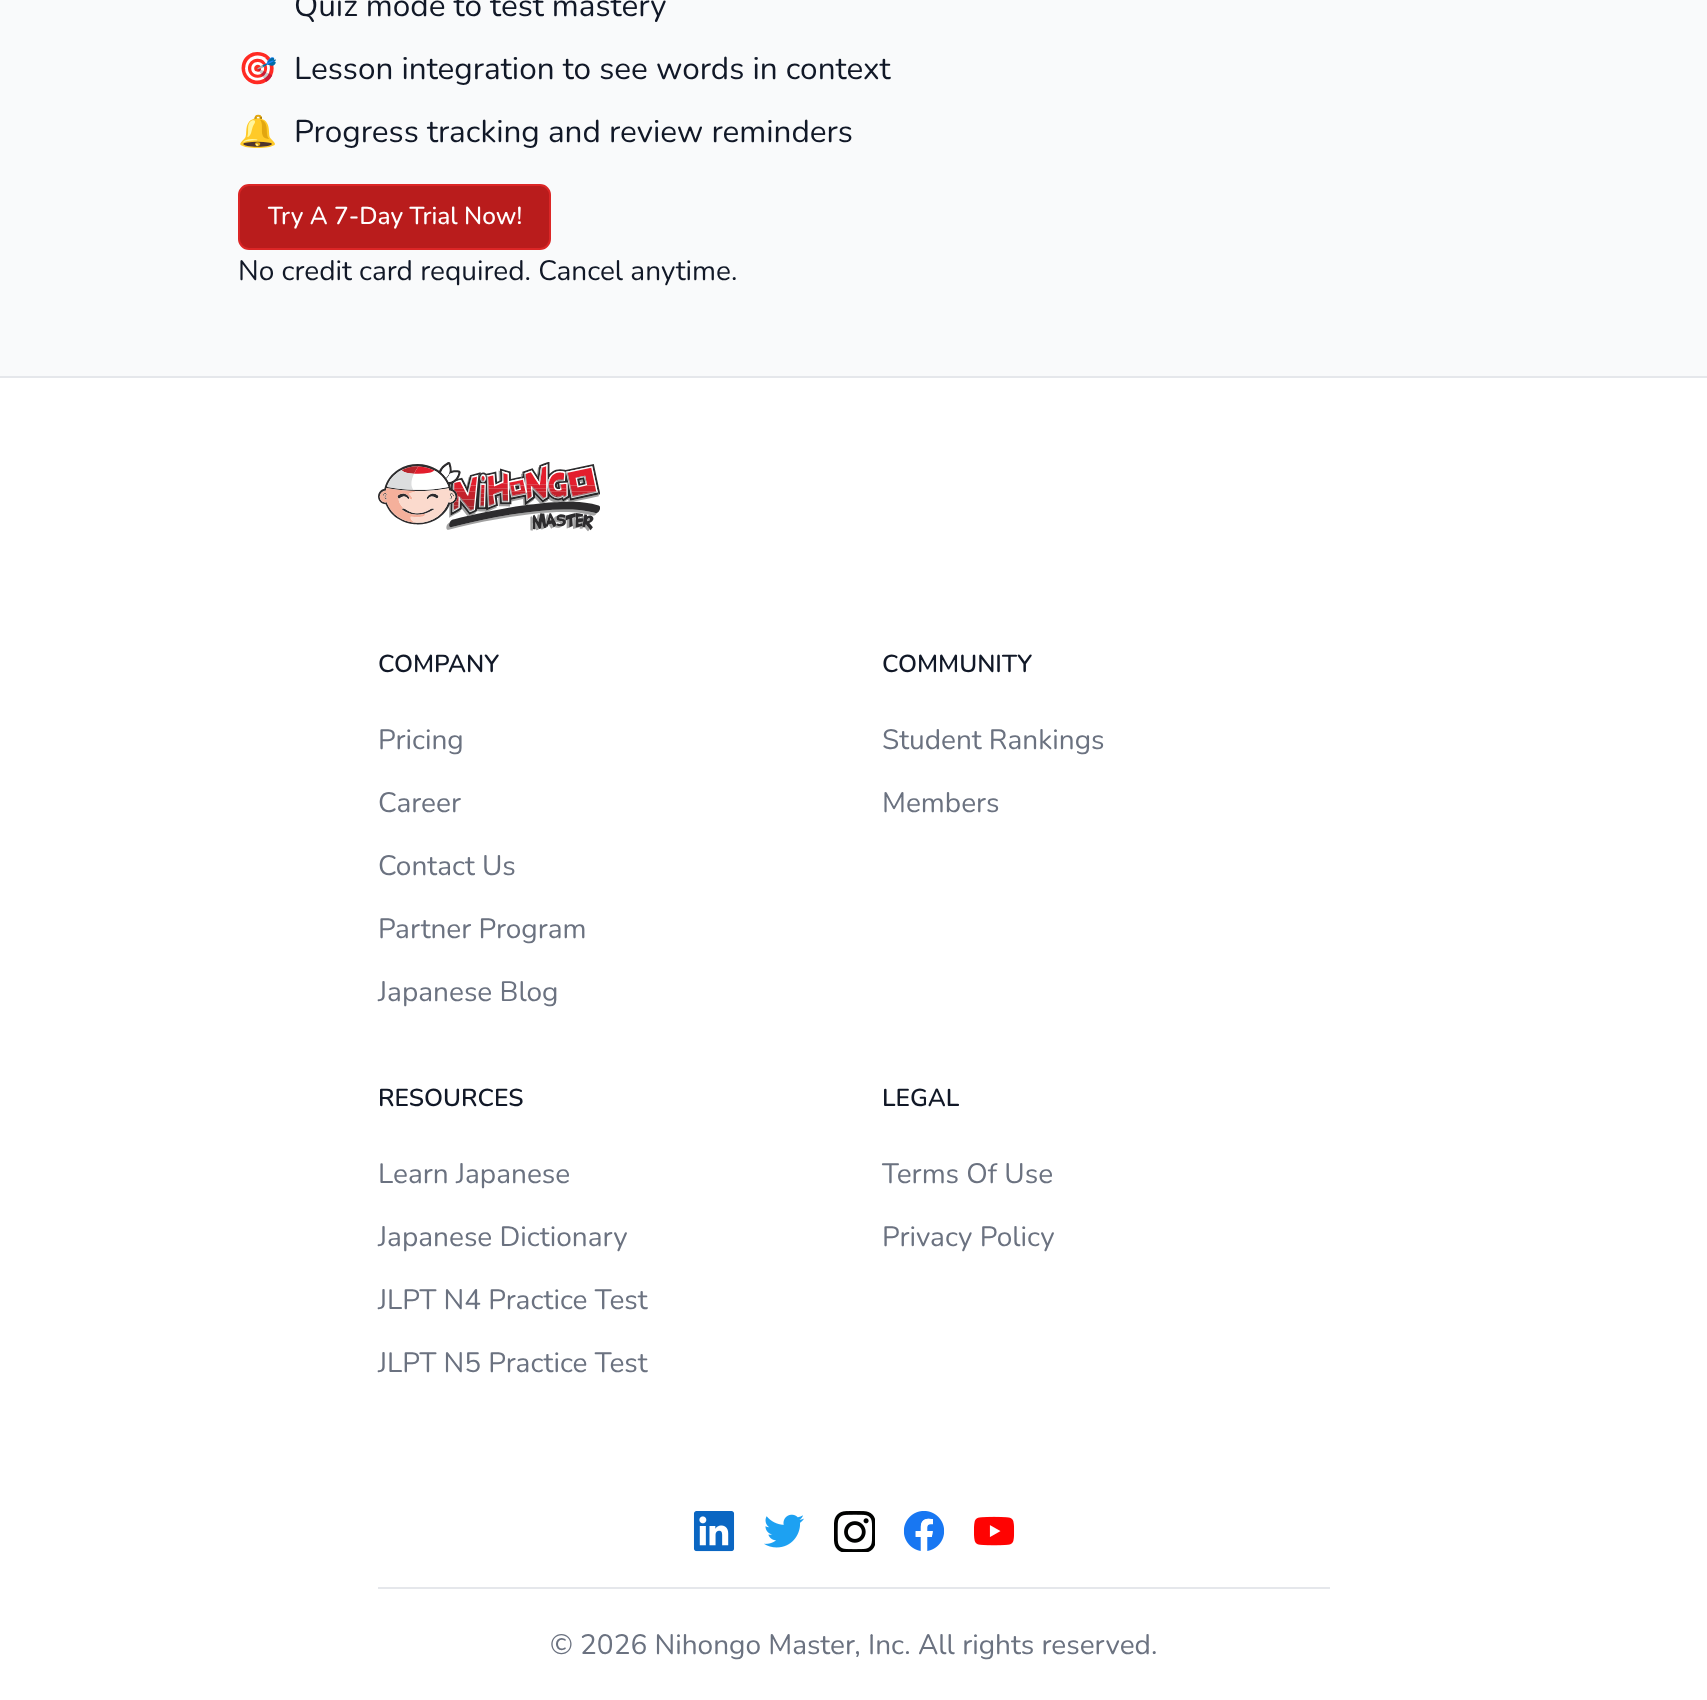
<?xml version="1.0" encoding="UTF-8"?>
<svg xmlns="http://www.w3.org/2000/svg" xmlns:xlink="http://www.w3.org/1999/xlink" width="1707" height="1700">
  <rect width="100%" height="100%" fill="#f9fafb" />
  <rect x="239" y="185" width="311" height="64" rx="10" fill="#b91c1c" stroke="#dc2626" stroke-width="2" />
  <rect y="376" width="1707" height="2" fill="#e5e7eb" />
  <rect y="378" width="1707" height="1322" fill="#ffffff" />
  <image x="378" y="462" width="222" height="70" xlink:href="image1.png" />
  <image x="693" y="1511" width="42" height="41" xlink:href="image2.png" />
  <image x="764" y="1514" width="40" height="34" xlink:href="image3.png" />
  <image x="834" y="1511" width="41" height="41" xlink:href="image4.png" />
  <image x="903" y="1511" width="42" height="40" xlink:href="image5.png" />
  <image x="974" y="1516" width="41" height="30" xlink:href="image6.png" />
  <rect x="378" y="1587" width="952" height="2" fill="#e5e7eb" />
  <text x="294" y="16" style="font-family: Nunito; font-size: 31.5px; fill: #111827">Quiz mode to test mastery</text>
  <text x="238" y="79" style="font-family: Noto Color Emoji; font-size: 31.5px; fill: #111827">🎯</text>
  <text x="294" y="79" style="font-family: Nunito; font-size: 31.5px; fill: #111827">Lesson integration to see words in context</text>
  <text x="238" y="142" style="font-family: Noto Color Emoji; font-size: 31.5px; fill: #111827">🔔</text>
  <text x="294" y="142" style="font-family: Nunito; font-size: 31.5px; fill: #111827">Progress tracking and review reminders</text>
  <text x="268" y="224" style="font-family: Nunito; font-size: 24.5px; font-weight: 500; fill: #ffffff">Try A 7-Day Trial Now!</text>
  <text x="238" y="280" style="font-family: Nunito; font-size: 28px; fill: #111827">No credit card required. Cancel anytime.</text>
  <text x="378" y="672" style="font-family: Nunito; font-size: 24.5px; font-weight: 600; fill: #111827">COMPANY</text>
  <text x="378" y="749" style="font-family: Nunito; font-size: 28px; fill: #6b7280">Pricing</text>
  <text x="378" y="812" style="font-family: Nunito; font-size: 28px; fill: #6b7280">Career</text>
  <text x="378" y="875" style="font-family: Nunito; font-size: 28px; fill: #6b7280">Contact Us</text>
  <text x="378" y="938" style="font-family: Nunito; font-size: 28px; fill: #6b7280">Partner Program</text>
  <text x="378" y="1001" style="font-family: Nunito; font-size: 28px; fill: #6b7280">Japanese Blog</text>
  <text x="882" y="672" style="font-family: Nunito; font-size: 24.5px; font-weight: 600; fill: #111827">COMMUNITY</text>
  <text x="882" y="749" style="font-family: Nunito; font-size: 28px; fill: #6b7280">Student Rankings</text>
  <text x="882" y="812" style="font-family: Nunito; font-size: 28px; fill: #6b7280">Members</text>
  <text x="378" y="1106" style="font-family: Nunito; font-size: 24.5px; font-weight: 600; fill: #111827">RESOURCES</text>
  <text x="378" y="1183" style="font-family: Nunito; font-size: 28px; fill: #6b7280">Learn Japanese</text>
  <text x="378" y="1246" style="font-family: Nunito; font-size: 28px; fill: #6b7280">Japanese Dictionary</text>
  <text x="378" y="1309" style="font-family: Nunito; font-size: 28px; fill: #6b7280">JLPT N4 Practice Test</text>
  <text x="378" y="1372" style="font-family: Nunito; font-size: 28px; fill: #6b7280">JLPT N5 Practice Test</text>
  <text x="882" y="1106" style="font-family: Nunito; font-size: 24.5px; font-weight: 600; fill: #111827">LEGAL</text>
  <text x="882" y="1183" style="font-family: Nunito; font-size: 28px; fill: #6b7280">Terms Of Use</text>
  <text x="882" y="1246" style="font-family: Nunito; font-size: 28px; fill: #6b7280">Privacy Policy</text>
  <text x="550" y="1654" style="font-family: Nunito; font-size: 28px; fill: #6b7280">© 2026 Nihongo Master, Inc. All rights reserved.</text>
</svg>
